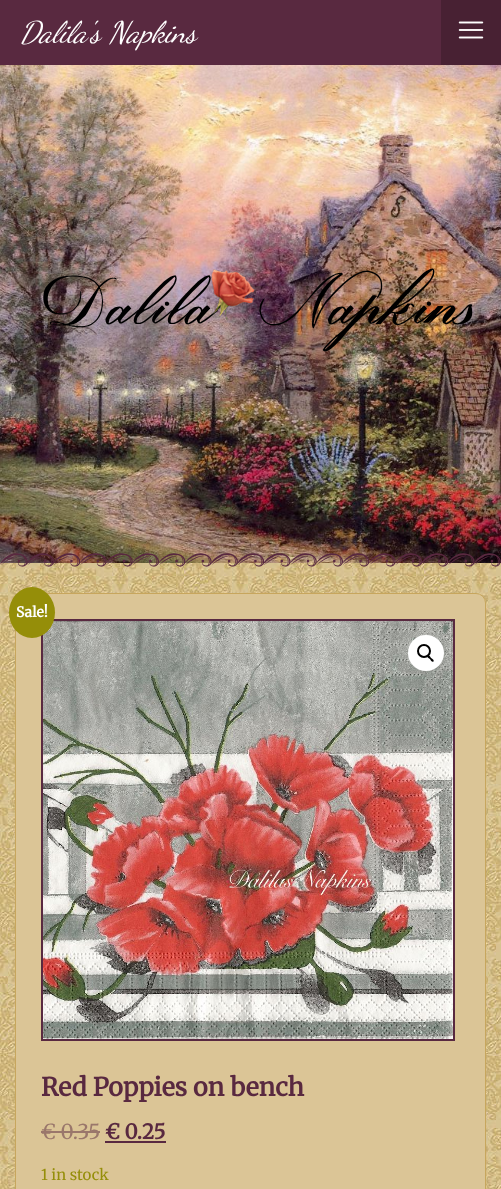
<?xml version="1.0" encoding="UTF-8"?>
<svg xmlns="http://www.w3.org/2000/svg" xmlns:xlink="http://www.w3.org/1999/xlink" width="501" height="1189">
  <rect width="100%" height="100%" fill="#ffffff" />
  <image x="0" y="563" width="501" height="626" xlink:href="image1.png" />
  <rect width="441" height="65" fill="#592940" />
  <rect x="441" width="60" height="65" fill="#482133" />
  <image x="458" y="21" width="26" height="18" xlink:href="image2.png" />
  <image x="0" y="65" width="501" height="498" xlink:href="image3.png" />
  <image x="0" y="553" width="501" height="14" xlink:href="image5.png" />
  <rect x="15.5" y="593.5" width="470" height="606" rx="9.5" fill="#dbc596" stroke="#c7a65d" />
  <rect x="42" y="620" width="412" height="420" fill="none" stroke="#592940" stroke-width="2" />
  <image x="43" y="621" width="410" height="418" xlink:href="image6.png" />
  <ellipse cx="32" cy="612.5" rx="23" ry="25.5" fill="#958e09" />
  <circle cx="426" cy="653" r="18" fill="#ffffff" />
  <circle cx="424" cy="651" r="6" fill="none" stroke="#000000" stroke-width="2" />
  <path d="M 427.5 655.5 c 1.5 -1 3 1.5 3.5 2.5 c 1 0.5 3.5 2 2.5 3.5 c -1.5 1 -3 -1.5 -3.5 -2.5 c -1 -0.5 -3.5 -2 -2.5 -3.5 z" fill="#000000" />
  <rect x="41" y="1131" width="59" height="2" fill="#9a776b" />
  <rect x="105" y="1141" width="61" height="2" fill="#592940" />
  <text x="20" y="42" style="font-family: Dancing Script; font-size: 30px; font-style: italic; fill: #ffffff">Dalila's Napkins</text>
  <text x="29" y="324" style="font-family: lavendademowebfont; font-size: 70px; fill: #000000">Dalila</text>
  <image x="211" y="269" width="44" height="52" xlink:href="image4.png" />
  <text x="260" y="324" style="font-family: lavendademowebfont; font-size: 70px; fill: #000000">Napkins</text>
  <text x="16" y="617" style="font-family: Merriweather; font-size: 14px; font-weight: bold; fill: #ffffff">Sale!</text>
  <text x="41" y="1096" style="font-family: Merriweather; font-size: 25px; font-weight: bold; fill: #592940">Red Poppies on bench</text>
  <text x="41" y="1139" style="font-family: Merriweather; font-size: 20.5px; font-weight: 300; fill: #9a776b">€ 0.35</text>
  <text x="105" y="1139" style="font-family: Merriweather; font-size: 20.5px; font-weight: bold; fill: #592940">€ 0.25</text>
  <text x="41" y="1180" style="font-family: Merriweather; font-size: 15px; font-weight: 300; fill: #958e09">1 in stock</text>
</svg>
